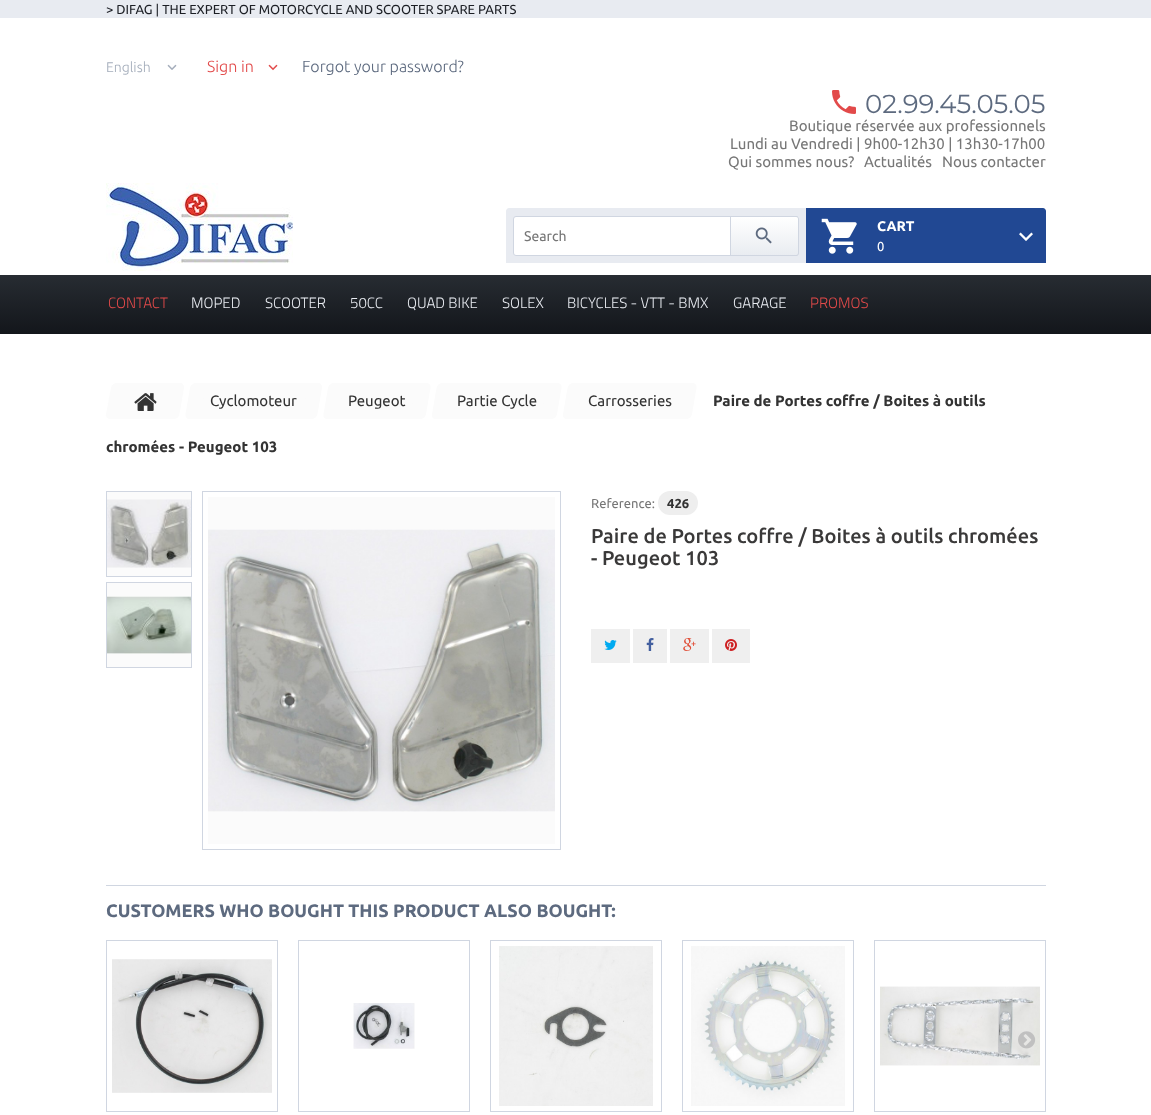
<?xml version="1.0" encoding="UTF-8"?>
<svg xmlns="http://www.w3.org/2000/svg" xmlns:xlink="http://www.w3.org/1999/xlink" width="1151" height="1115">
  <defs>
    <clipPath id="clip1"><path d="M 730 216 h 66 c 1.5 0 3 1.5 3 3 v 34 c 0 1.5 -1.5 3 -3 3 h -66 z" /></clipPath>
    <linearGradient id="g1" gradientUnits="userSpaceOnUse" x1="765" y1="217" x2="765" y2="255"><stop offset="0" stop-color="#ffffff" /><stop offset="1" stop-color="#e9ecf1" /></linearGradient>
    <linearGradient id="g2" gradientUnits="userSpaceOnUse" x1="91" y1="275" x2="91" y2="334"><stop offset="0" stop-color="#272c32" /><stop offset="1" stop-color="#13161b" /></linearGradient>
  </defs>
  <rect width="100%" height="100%" fill="#ffffff" />
  <rect width="1151" height="18" fill="#e8ebf1" />
  <image x="167" y="64" width="10" height="6" xlink:href="image1.png" />
  <image x="268" y="64" width="10" height="7" xlink:href="image2.png" />
  <image x="832" y="90" width="24" height="24" xlink:href="image3.png" />
  <image x="106" y="183" width="187" height="88" xlink:href="image4.png" />
  <path d="M 509 208 h 297 v 55 h -300 v -52 c 0 -1.5 1.5 -3 3 -3 z" fill="#e8ebf1" />
  <rect x="513.5" y="216.5" width="285" height="39" rx="2.5" fill="#ffffff" stroke="#d0d6e1" />
  <g clip-path="url(#clip1)">
    <rect x="731" y="217" width="68" height="38" fill="url(#g1)" />
  </g>
  <path d="M 730.5 216.5 h 65.5 c 1.5 0 2.5 1 2.5 2.5 v 34 c 0 1.5 -1 2.5 -2.5 2.5 h -65.5 z" fill="none" stroke="#d0d6e1" />
  <image x="755" y="227" width="17" height="17" xlink:href="image5.png" />
  <path d="M 806 208 h 237 c 1.5 0 3 1.5 3 3 v 52 h -240 z" fill="#214893" />
  <image x="821" y="218" width="36" height="36" xlink:href="image6.png" />
  <image x="1019" y="232" width="14" height="9" xlink:href="image7.png" />
  <rect y="275" width="1151" height="59" fill="url(#g2)" />
  <rect x="130" y="383" width="30" height="36" fill="#fbfbfb" />
  <image x="134" y="393" width="23" height="18" xlink:href="image8.png" />
  <path d="M 116.5 383 h 20 l -6 36 h -20 c -3 0 -5 -2 -4.5 -5 l 5 -26 c 0.5 -3 3 -5 5.5 -5 z" fill="#fbfbfb" />
  <path d="M 160 383 h 20 c 2.5 0 4.5 2 4 5 l -4.5 26 c -0.5 3 -3 5 -6 5 h -20 z" fill="#fbfbfb" />
  <rect x="195" y="383" width="117" height="36" fill="#fbfbfb" />
  <path d="M 196 383 h 10 l -6.5 36 h -10 c -2.5 0 -4.5 -2 -4 -5 l 4.5 -26 c 0.5 -3 3 -5 6 -5 z" fill="#fbfbfb" />
  <path d="M 308 383 h 10 c 2.5 0 4.5 2 4 5 l -4.5 26 c -0.5 3 -3.5 5 -6 5 h -10 z" fill="#fbfbfb" />
  <rect x="333" y="383" width="88" height="36" fill="#fbfbfb" />
  <path d="M 334 383 h 10 l -6.5 36 h -10 c -3 0 -4.5 -2 -4 -5 l 4.5 -26 c 0.5 -3 3 -5 6 -5 z" fill="#fbfbfb" />
  <path d="M 416.5 383 h 10 c 2.5 0 4.5 2 4 5 l -4.5 26 c -0.5 3 -3 5 -6 5 h -10 z" fill="#fbfbfb" />
  <rect x="442" y="383" width="110" height="36" fill="#fbfbfb" />
  <path d="M 442.5 383 h 10 l -6.5 36 h -10 c -3 0 -4.5 -2 -4 -5 l 4.5 -26 c 0.5 -3 3 -5 6 -5 z" fill="#fbfbfb" />
  <path d="M 547.5 383 h 10 c 2.5 0 4.5 2 4 5 l -4.5 26 c -0.5 3 -3 5 -6 5 h -10 z" fill="#fbfbfb" />
  <rect x="573" y="383" width="114" height="36" fill="#fbfbfb" />
  <path d="M 573.5 383 h 10 l -6.5 36 h -10 c -2.5 0 -4.5 -2 -4 -5 l 4.5 -26 c 0.5 -3 3 -5 6 -5 z" fill="#fbfbfb" />
  <path d="M 682.5 383 h 10 c 2.5 0 4.5 2 4 5 l -4.5 26 c -0.5 3 -3 5 -6 5 h -10 z" fill="#fbfbfb" />
  <rect x="106.5" y="491.5" width="85" height="85" fill="#fbfbfb" stroke="#d0d6e1" />
  <image x="107" y="499" width="84" height="69" xlink:href="image9.png" />
  <rect x="106.5" y="582.5" width="85" height="85" fill="#fbfbfb" stroke="#d0d6e1" />
  <image x="107" y="596" width="84" height="58" xlink:href="image10.png" />
  <rect x="202.5" y="491.5" width="358" height="358" fill="none" stroke="#d0d6e1" />
  <rect x="208" y="497" width="347" height="347" fill="#fbfbfb" />
  <image x="208" y="529" width="347" height="283" xlink:href="image11.png" />
  <rect x="658" y="491" width="40" height="24" rx="12" fill="#eeeeee" />
  <rect x="591" y="629" width="39" height="34" fill="#efefef" />
  <image x="604" y="640" width="13" height="10" xlink:href="image12.png" />
  <rect x="633" y="629" width="34" height="34" fill="#efefef" />
  <image x="646" y="638" width="8" height="13" xlink:href="image13.png" />
  <rect x="670" y="629" width="39" height="34" fill="#efefef" />
  <image x="683" y="638" width="13" height="13" xlink:href="image14.png" />
  <rect x="712" y="629" width="38" height="34" fill="#efefef" />
  <image x="725" y="639" width="12" height="12" xlink:href="image15.png" />
  <rect x="106" y="885" width="940" height="1" fill="#d0d6e1" />
  <rect x="106.5" y="940.5" width="171" height="171" fill="none" stroke="#d0d6e1" />
  <image x="112" y="959" width="160" height="134" xlink:href="image16.png" />
  <rect x="298.5" y="940.5" width="171" height="171" fill="none" stroke="#d0d6e1" />
  <image x="353" y="1003" width="62" height="46" xlink:href="image17.png" />
  <rect x="490.5" y="940.5" width="171" height="171" fill="none" stroke="#d0d6e1" />
  <image x="499" y="946" width="154" height="160" xlink:href="image18.png" />
  <rect x="682.5" y="940.5" width="171" height="171" fill="none" stroke="#d0d6e1" />
  <image x="691" y="946" width="154" height="160" xlink:href="image19.png" />
  <rect x="874.5" y="940.5" width="171" height="171" fill="none" stroke="#d0d6e1" />
  <image x="880" y="986" width="160" height="80" xlink:href="image20.png" />
  <image x="1018" y="1031" width="18" height="18" xlink:href="image21.png" />
  <text x="106" y="14" style="font-family: Ubuntu; font-size: 13px; fill: #1c1f25">&gt; DIFAG | THE EXPERT OF MOTORCYCLE AND SCOOTER SPARE PARTS</text>
  <text x="106" y="72" style="font-family: Ubuntu; font-size: 14px; font-weight: 300; fill: #a4adbb">English</text>
  <text x="207" y="72" style="font-family: Ubuntu; font-size: 16px; font-weight: 300; fill: #e24a4a">Sign in</text>
  <text x="302" y="72" style="font-family: Ubuntu; font-size: 16px; font-weight: 300; fill: #5d6a7f">Forgot your password?</text>
  <text x="865" y="113" style="font-family: Montserrat; font-size: 26px; fill: #5d6a7f">02.99.45.05.05</text>
  <text x="789" y="131" style="font-family: Ubuntu; font-size: 15px; fill: #777777">Boutique réservée aux professionnels</text>
  <text x="730" y="149" style="font-family: Ubuntu; font-size: 15px; fill: #777777">Lundi au Vendredi | 9h00-12h30 | 13h30-17h00</text>
  <text x="728" y="167" style="font-family: Ubuntu; font-size: 15px; fill: #777777">Qui sommes nous?</text>
  <text x="864" y="167" style="font-family: Ubuntu; font-size: 15px; fill: #777777">Actualités</text>
  <text x="942" y="167" style="font-family: Ubuntu; font-size: 15px; fill: #777777">Nous contacter</text>
  <text x="524" y="241" style="font-family: Ubuntu; font-size: 14px; fill: #777777">Search</text>
  <text x="877" y="231" style="font-family: Ubuntu; font-size: 14px; font-weight: bold; fill: #ffffff">CART</text>
  <text x="877" y="251" style="font-family: Ubuntu; font-size: 13px; fill: #ffffff">0</text>
  <text x="108" y="308" style="font-family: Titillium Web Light; font-size: 15px; font-weight: 300; fill: #e24a4a">CONTACT</text>
  <text x="191" y="308" style="font-family: Titillium Web Light; font-size: 15px; font-weight: 300; fill: #e8ebf1">MOPED</text>
  <text x="265" y="308" style="font-family: Titillium Web Light; font-size: 15px; font-weight: 300; fill: #e8ebf1">SCOOTER</text>
  <text x="350" y="308" style="font-family: Titillium Web Light; font-size: 15px; font-weight: 300; fill: #e8ebf1">50CC</text>
  <text x="407" y="308" style="font-family: Titillium Web Light; font-size: 15px; font-weight: 300; fill: #e8ebf1">QUAD BIKE</text>
  <text x="502" y="308" style="font-family: Titillium Web Light; font-size: 15px; font-weight: 300; fill: #e8ebf1">SOLEX</text>
  <text x="567" y="308" style="font-family: Titillium Web Light; font-size: 15px; font-weight: 300; fill: #e8ebf1">BICYCLES - VTT - BMX</text>
  <text x="733" y="308" style="font-family: Titillium Web Light; font-size: 15px; font-weight: 300; fill: #e8ebf1">GARAGE</text>
  <text x="810" y="308" style="font-family: Titillium Web Light; font-size: 15px; font-weight: 300; fill: #e24a4a">PROMOS</text>
  <text x="210" y="406" style="font-family: Ubuntu; font-size: 15px; fill: #333333">Cyclomoteur</text>
  <text x="348" y="406" style="font-family: Ubuntu; font-size: 15px; fill: #333333">Peugeot</text>
  <text x="457" y="406" style="font-family: Ubuntu; font-size: 15px; fill: #333333">Partie Cycle</text>
  <text x="588" y="406" style="font-family: Ubuntu; font-size: 15px; fill: #333333">Carrosseries</text>
  <text x="713" y="406" style="font-family: Ubuntu; font-size: 15px; font-weight: bold; fill: #333333">Paire de Portes coffre / Boites à outils</text>
  <text x="106" y="452" style="font-family: Ubuntu; font-size: 15px; font-weight: bold; fill: #333333">chromées - Peugeot 103</text>
  <text x="591" y="508" style="font-family: Ubuntu; font-size: 13px; fill: #777777">Reference:</text>
  <text x="667" y="508" style="font-family: Ubuntu; font-size: 13px; font-weight: bold; fill: #333333">426</text>
  <text x="591" y="543" style="font-family: Ubuntu; font-size: 20px; font-weight: 500; fill: #3a3939">Paire de Portes coffre / Boites à outils chromées</text>
  <text x="591" y="565" style="font-family: Ubuntu; font-size: 20px; font-weight: 500; fill: #3a3939">- Peugeot 103</text>
  <text x="106" y="917" style="font-family: Ubuntu; font-size: 18px; font-weight: bold; fill: #5d6a7f">CUSTOMERS WHO BOUGHT THIS PRODUCT ALSO BOUGHT:</text>
</svg>
